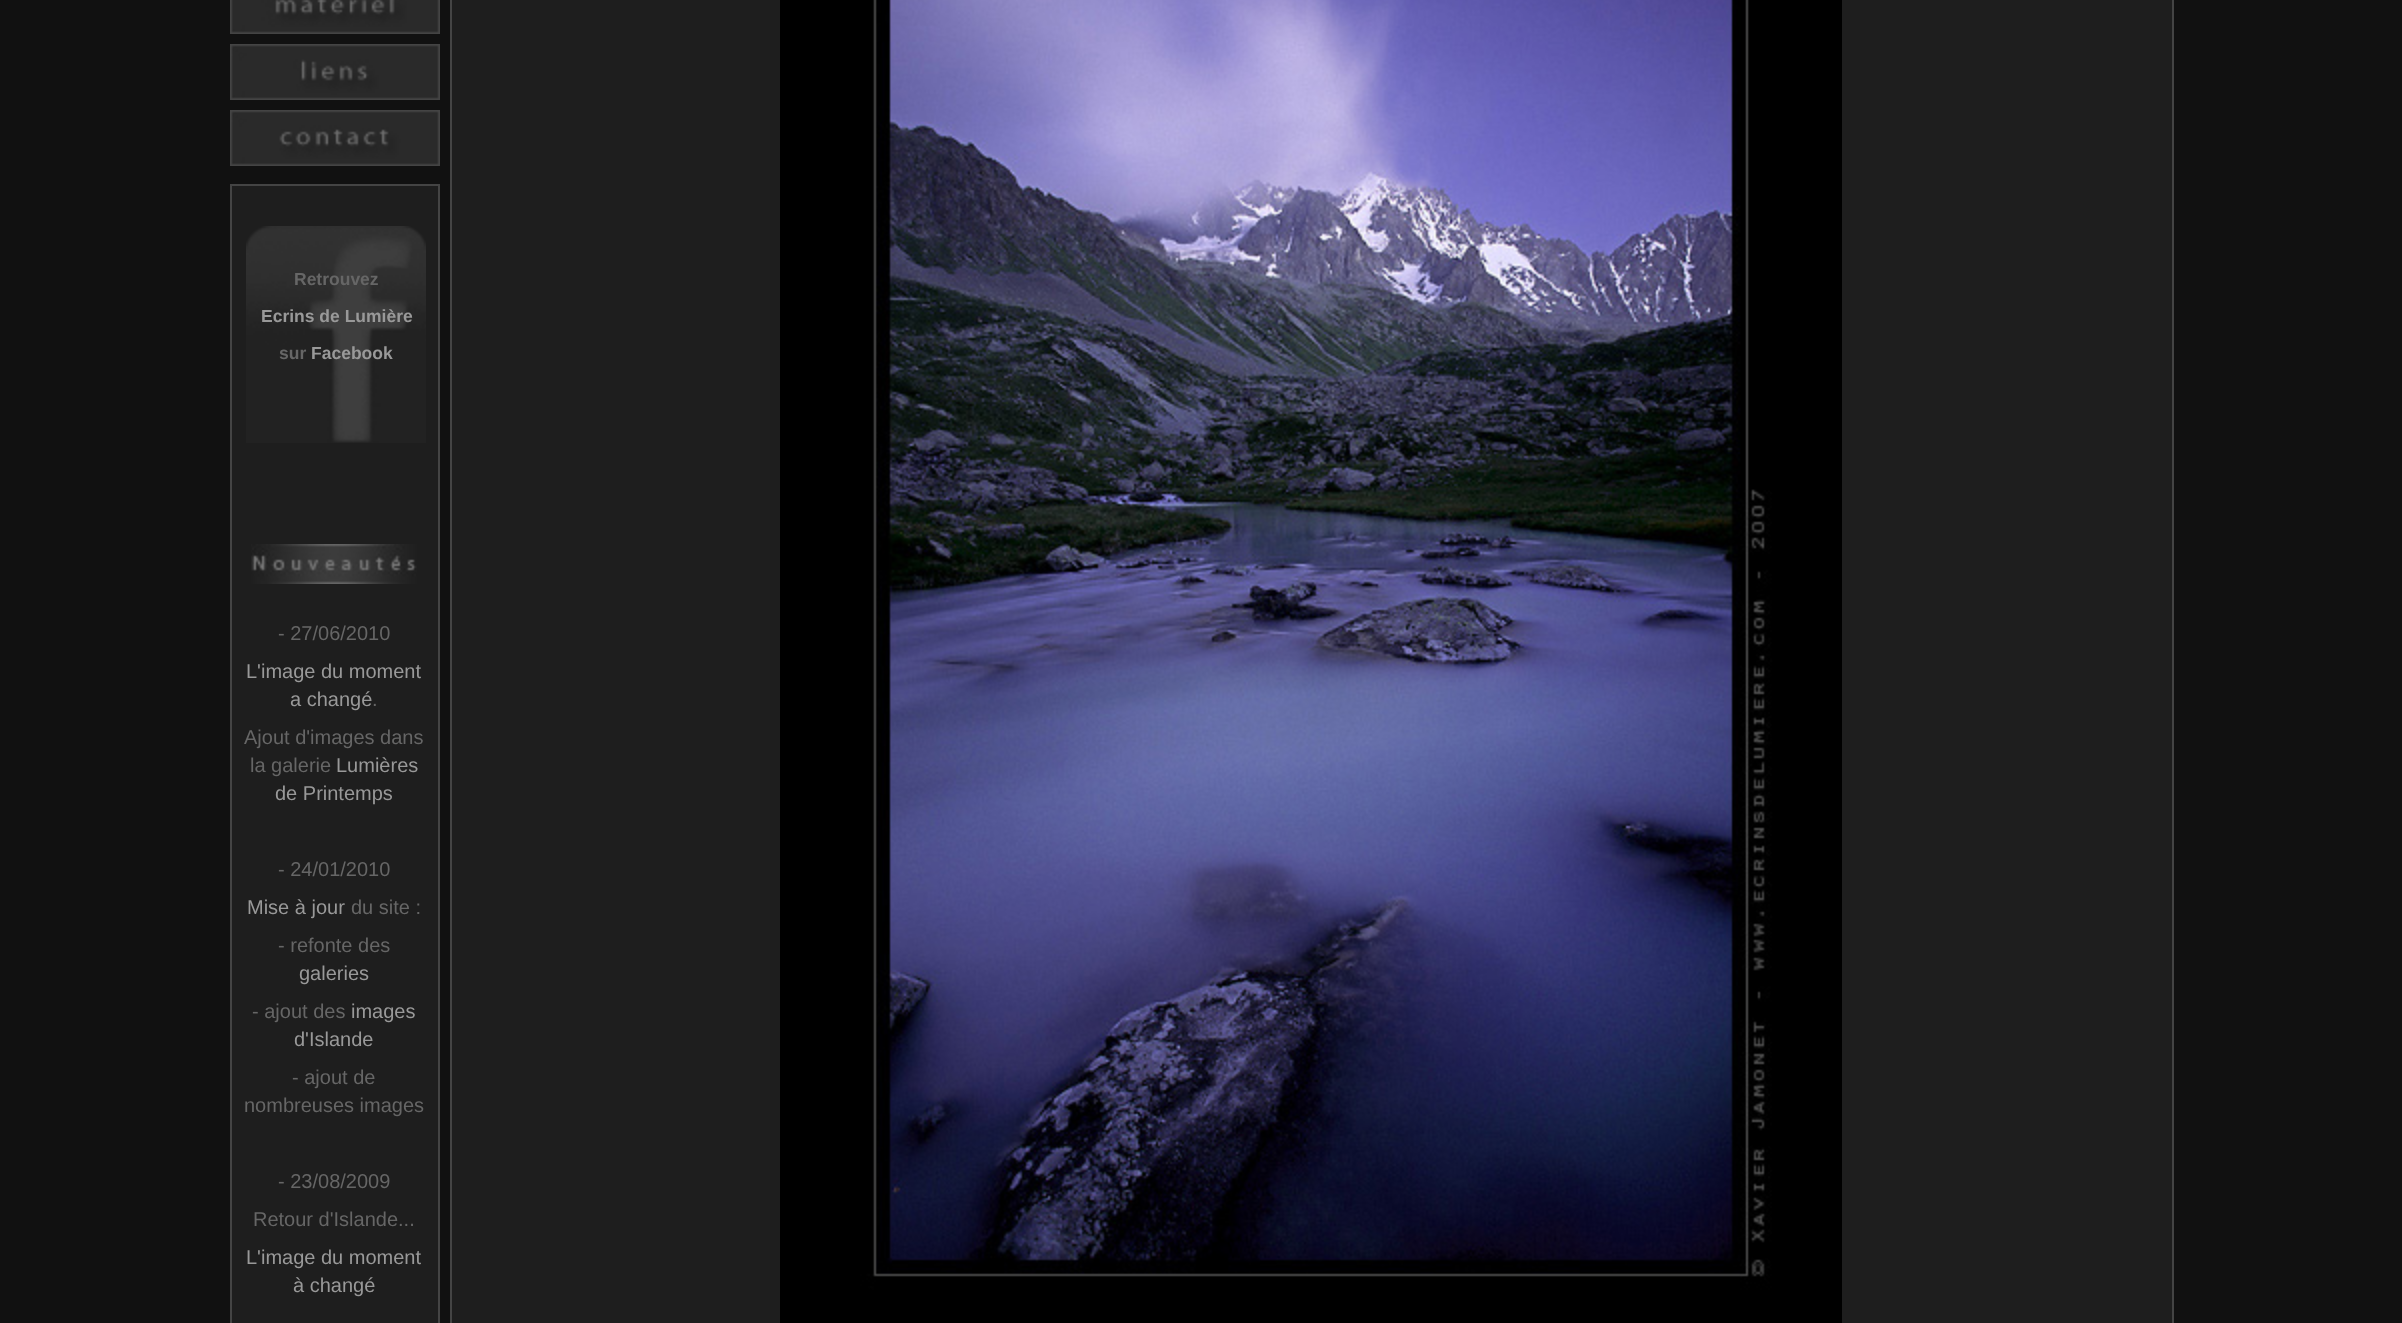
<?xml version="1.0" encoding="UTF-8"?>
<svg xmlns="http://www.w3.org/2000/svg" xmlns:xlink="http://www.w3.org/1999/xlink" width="2402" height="1323">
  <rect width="100%" height="100%" fill="#111111" />
  <image x="230" y="0" width="210" height="34" xlink:href="image1.png" />
  <image x="230" y="44" width="210" height="56" xlink:href="image2.png" />
  <image x="230" y="110" width="210" height="56" xlink:href="image3.png" />
  <rect x="232" y="186" width="206" height="1137" fill="#1e1e1e" />
  <rect x="230" y="184" width="210" height="2" fill="#444444" />
  <rect x="438" y="184" width="2" height="1139" fill="#444444" />
  <rect x="230" y="184" width="2" height="1139" fill="#444444" />
  <image x="246" y="226" width="180" height="217" xlink:href="image4.png" />
  <image x="251" y="544" width="166" height="40" xlink:href="image5.png" />
  <rect x="451" y="-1" width="1722" height="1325" fill="#1e1e1e" stroke="#444444" stroke-width="2" />
  <image x="780" y="0" width="1062" height="1323" xlink:href="image6.png" />
  <text x="294" y="285" style="font-family: Liberation Sans; font-size: 17.5px; font-weight: bold; fill: #666666">Retrouvez</text>
  <text x="261" y="322" style="font-family: Liberation Sans; font-size: 17.5px; font-weight: bold; fill: #999999">Ecrins de Lumière</text>
  <text x="279" y="359" style="font-family: Liberation Sans; font-size: 17.5px; font-weight: bold; fill: #666666">sur</text>
  <text x="311" y="359" style="font-family: Liberation Sans; font-size: 17.5px; font-weight: bold; fill: #999999">Facebook</text>
  <text x="278" y="640" style="font-family: Liberation Sans; font-size: 20px; fill: #666666">- 27/06/2010</text>
  <text x="246" y="678" style="font-family: Liberation Sans; font-size: 20px; fill: #999999">L'image du moment</text>
  <text x="290" y="706" style="font-family: Liberation Sans; font-size: 20px; fill: #999999">a changé</text>
  <text x="372" y="706" style="font-family: Liberation Sans; font-size: 20px; fill: #666666">.</text>
  <text x="244" y="744" style="font-family: Liberation Sans; font-size: 20px; fill: #666666">Ajout d'images dans</text>
  <text x="250" y="772" style="font-family: Liberation Sans; font-size: 20px; fill: #666666">la galerie</text>
  <text x="336" y="772" style="font-family: Liberation Sans; font-size: 20px; fill: #999999">Lumières</text>
  <text x="275" y="800" style="font-family: Liberation Sans; font-size: 20px; fill: #999999">de Printemps</text>
  <text x="278" y="876" style="font-family: Liberation Sans; font-size: 20px; fill: #666666">- 24/01/2010</text>
  <text x="247" y="914" style="font-family: Liberation Sans; font-size: 20px; fill: #999999">Mise à jour</text>
  <text x="351" y="914" style="font-family: Liberation Sans; font-size: 20px; fill: #666666">du site :</text>
  <text x="278" y="952" style="font-family: Liberation Sans; font-size: 20px; fill: #666666">- refonte des</text>
  <text x="299" y="980" style="font-family: Liberation Sans; font-size: 20px; fill: #999999">galeries</text>
  <text x="252" y="1018" style="font-family: Liberation Sans; font-size: 20px; fill: #666666">- ajout des</text>
  <text x="351" y="1018" style="font-family: Liberation Sans; font-size: 20px; fill: #999999">images</text>
  <text x="294" y="1046" style="font-family: Liberation Sans; font-size: 20px; fill: #999999">d'Islande</text>
  <text x="292" y="1084" style="font-family: Liberation Sans; font-size: 20px; fill: #666666">- ajout de</text>
  <text x="244" y="1112" style="font-family: Liberation Sans; font-size: 20px; fill: #666666">nombreuses images</text>
  <text x="278" y="1188" style="font-family: Liberation Sans; font-size: 20px; fill: #666666">- 23/08/2009</text>
  <text x="253" y="1226" style="font-family: Liberation Sans; font-size: 20px; fill: #666666">Retour d'Islande...</text>
  <text x="246" y="1264" style="font-family: Liberation Sans; font-size: 20px; fill: #999999">L'image du moment</text>
  <text x="293" y="1292" style="font-family: Liberation Sans; font-size: 20px; fill: #999999">à changé</text>
</svg>
